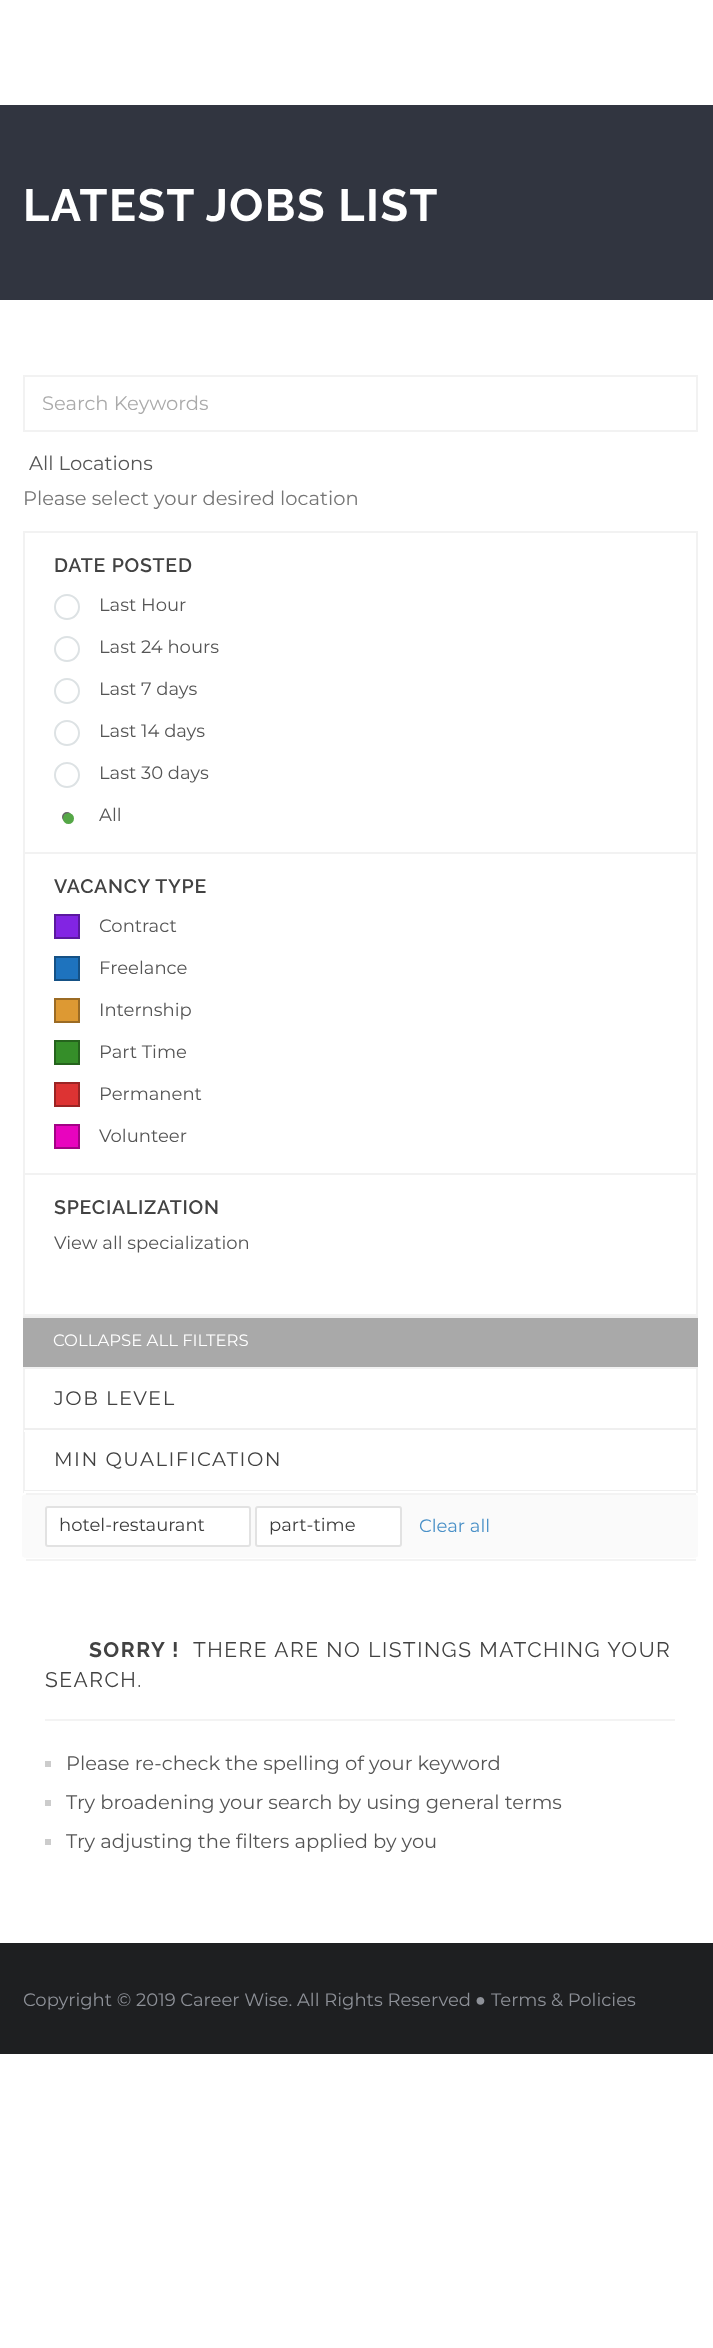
<?xml version="1.0" encoding="UTF-8"?>
<svg xmlns="http://www.w3.org/2000/svg" xmlns:xlink="http://www.w3.org/1999/xlink" width="713" height="2348">
  <rect width="100%" height="100%" fill="#ffffff" />
  <rect y="105" width="713" height="195" fill="#313540" />
  <rect x="24" y="376" width="673" height="55" fill="none" stroke="#f2f2f2" stroke-width="2" />
  <rect x="23" y="531" width="675" height="2" fill="#f2f2f2" />
  <rect x="696" y="531" width="2" height="321" fill="#f2f2f2" />
  <rect x="23" y="531" width="2" height="321" fill="#f2f2f2" />
  <circle cx="67" cy="607" r="12" fill="none" stroke="#dde2e4" stroke-width="2" />
  <circle cx="67" cy="649" r="12" fill="none" stroke="#dde2e4" stroke-width="2" />
  <circle cx="67" cy="691" r="12" fill="none" stroke="#dde2e4" stroke-width="2" />
  <circle cx="67" cy="733" r="12" fill="none" stroke="#dde2e4" stroke-width="2" />
  <circle cx="67" cy="775" r="12" fill="none" stroke="#dde2e4" stroke-width="2" />
  <circle cx="67" cy="817" r="4" fill="none" stroke="#646464" stroke-width="2" />
  <circle cx="68.5" cy="818.5" r="4.5" fill="#55a747" stroke="#55a747" stroke-width="2" />
  <rect x="23" y="852" width="675" height="2" fill="#f2f2f2" />
  <rect x="696" y="852" width="2" height="321" fill="#f2f2f2" />
  <rect x="23" y="852" width="2" height="321" fill="#f2f2f2" />
  <rect x="55" y="915" width="24" height="23" fill="#8224e3" stroke="#5b199f" stroke-width="2" />
  <rect x="55" y="957" width="24" height="23" fill="#1e73be" stroke="#155185" stroke-width="2" />
  <rect x="55" y="999" width="24" height="23" fill="#dd9933" stroke="#9b6b24" stroke-width="2" />
  <rect x="55" y="1041" width="24" height="23" fill="#358e29" stroke="#25631d" stroke-width="2" />
  <rect x="55" y="1083" width="24" height="23" fill="#dd3333" stroke="#9b2424" stroke-width="2" />
  <rect x="55" y="1125" width="24" height="23" fill="#e804be" stroke="#a20385" stroke-width="2" />
  <rect x="24" y="1174" width="673" height="141" fill="none" stroke="#f2f2f2" stroke-width="2" />
  <rect x="23" y="1318" width="675" height="49" fill="#a9a9a9" />
  <rect x="23" y="1316" width="675" height="2" fill="#efefef" />
  <rect x="24" y="1368" width="673" height="124" fill="none" stroke="#f2f2f2" stroke-width="2" />
  <rect x="24" y="1428" width="672" height="2" fill="#efefef" />
  <rect x="24" y="1430" width="1" height="2" fill="#ffffff" />
  <rect x="24" y="1490" width="672" height="1" fill="#efefef" />
  <rect x="24" y="1491" width="672" height="2" fill="#ffffff" />
  <path d="M 27 1494 h 666 c 2 0 5 1 5 3 v 59 c 0 1 -3 2 -5 2 h -666 c -2 0 -5 -1 -5 -2 v -59 c 0 -2 3 -3 5 -3 z" fill="#fafafa" />
  <rect x="26" y="1493" width="670" height="2" fill="#f3f3f3" />
  <rect x="26" y="1559" width="670" height="2" fill="#f3f3f3" />
  <rect x="46" y="1507" width="204" height="39" rx="2" fill="#ffffff" stroke="#e2e2e2" stroke-width="2" />
  <rect x="256" y="1507" width="145" height="39" rx="2" fill="#ffffff" stroke="#e2e2e2" stroke-width="2" />
  <rect x="45" y="1719" width="630" height="2" fill="#f3f3f3" />
  <rect x="45" y="1761" width="6" height="6" fill="#cccccc" />
  <rect x="45" y="1800" width="6" height="6" fill="#cccccc" />
  <rect x="45" y="1839" width="6" height="6" fill="#cccccc" />
  <rect y="1943" width="713" height="111" fill="#1e1f21" />
  <text x="23" y="221" style="font-family: Raleway; font-size: 45px; font-weight: bold; letter-spacing: 1.5px; fill: #ffffff">LATEST JOBS LIST</text>
  <text x="42" y="410" style="font-family: Montserrat; font-size: 19.5px; fill: #aaaaaa">Search Keywords</text>
  <text x="29" y="470" style="font-family: Montserrat; font-size: 19.5px; fill: #555555">All Locations</text>
  <text x="23" y="505" style="font-family: Montserrat; font-size: 19.5px; fill: #757575">Please select your desired location</text>
  <text x="54" y="572" style="font-family: Raleway; font-size: 19.5px; font-weight: 600; letter-spacing: 0.75px; fill: #424242">DATE POSTED</text>
  <text x="99" y="611" style="font-family: Montserrat; font-size: 18px; fill: #555555">Last Hour</text>
  <text x="99" y="653" style="font-family: Montserrat; font-size: 18px; fill: #555555">Last 24 hours</text>
  <text x="99" y="695" style="font-family: Montserrat; font-size: 18px; fill: #555555">Last 7 days</text>
  <text x="99" y="737" style="font-family: Montserrat; font-size: 18px; fill: #555555">Last 14 days</text>
  <text x="99" y="779" style="font-family: Montserrat; font-size: 18px; fill: #555555">Last 30 days</text>
  <text x="99" y="821" style="font-family: Montserrat; font-size: 18px; fill: #555555">All</text>
  <text x="54" y="893" style="font-family: Raleway; font-size: 19.5px; font-weight: 600; letter-spacing: 0.75px; fill: #424242">VACANCY TYPE</text>
  <text x="99" y="932" style="font-family: Montserrat; font-size: 18px; fill: #555555">Contract</text>
  <text x="99" y="974" style="font-family: Montserrat; font-size: 18px; fill: #555555">Freelance</text>
  <text x="99" y="1016" style="font-family: Montserrat; font-size: 18px; fill: #555555">Internship</text>
  <text x="99" y="1058" style="font-family: Montserrat; font-size: 18px; fill: #555555">Part Time</text>
  <text x="99" y="1100" style="font-family: Montserrat; font-size: 18px; fill: #555555">Permanent</text>
  <text x="99" y="1142" style="font-family: Montserrat; font-size: 18px; fill: #555555">Volunteer</text>
  <text x="54" y="1214" style="font-family: Raleway; font-size: 19.5px; font-weight: 600; letter-spacing: 0.75px; fill: #424242">SPECIALIZATION</text>
  <text x="54" y="1249" style="font-family: Montserrat; font-size: 18px; fill: #555555">View all specialization</text>
  <text x="53" y="1346" style="font-family: Montserrat; font-size: 16.5px; fill: #ffffff">COLLAPSE ALL FILTERS</text>
  <text x="54" y="1405" style="font-family: Montserrat; font-size: 19.5px; letter-spacing: 1.5px; fill: #424242">JOB LEVEL</text>
  <text x="54" y="1466" style="font-family: Montserrat; font-size: 19.5px; letter-spacing: 1.5px; fill: #424242">MIN QUALIFICATION</text>
  <text x="59" y="1531" style="font-family: Montserrat; font-size: 18px; fill: #3b3b3b">hotel-restaurant</text>
  <text x="269" y="1531" style="font-family: Montserrat; font-size: 18px; fill: #3b3b3b">part-time</text>
  <text x="419" y="1532" style="font-family: Montserrat; font-size: 18px; fill: #4990c7">Clear all</text>
  <text x="89" y="1657" style="font-family: Raleway; font-size: 21px; font-weight: bold; letter-spacing: 1.5px; fill: #424242">SORRY !</text>
  <text x="193" y="1657" style="font-family: Raleway; font-size: 21px; letter-spacing: 1.5px; fill: #424242">THERE ARE NO LISTINGS MATCHING YOUR</text>
  <text x="45" y="1687" style="font-family: Raleway; font-size: 21px; letter-spacing: 1.5px; fill: #424242">SEARCH.</text>
  <text x="66" y="1770" style="font-family: Montserrat; font-size: 19.5px; fill: #555555">Please re-check the spelling of your keyword</text>
  <text x="66" y="1809" style="font-family: Montserrat; font-size: 19.5px; fill: #555555">Try broadening your search by using general terms</text>
  <text x="66" y="1848" style="font-family: Montserrat; font-size: 19.5px; fill: #555555">Try adjusting the filters applied by you</text>
  <text x="23" y="2006" style="font-family: Montserrat; font-size: 18px; fill: #8e9198">Copyright © 2019 Career Wise. All Rights Reserved</text>
  <text x="475" y="2006" style="font-family: Liberation Sans; font-size: 18px; fill: #8e9198">●</text>
  <text x="491" y="2006" style="font-family: Montserrat; font-size: 18px; fill: #8e9198">Terms &amp; Policies</text>
</svg>
